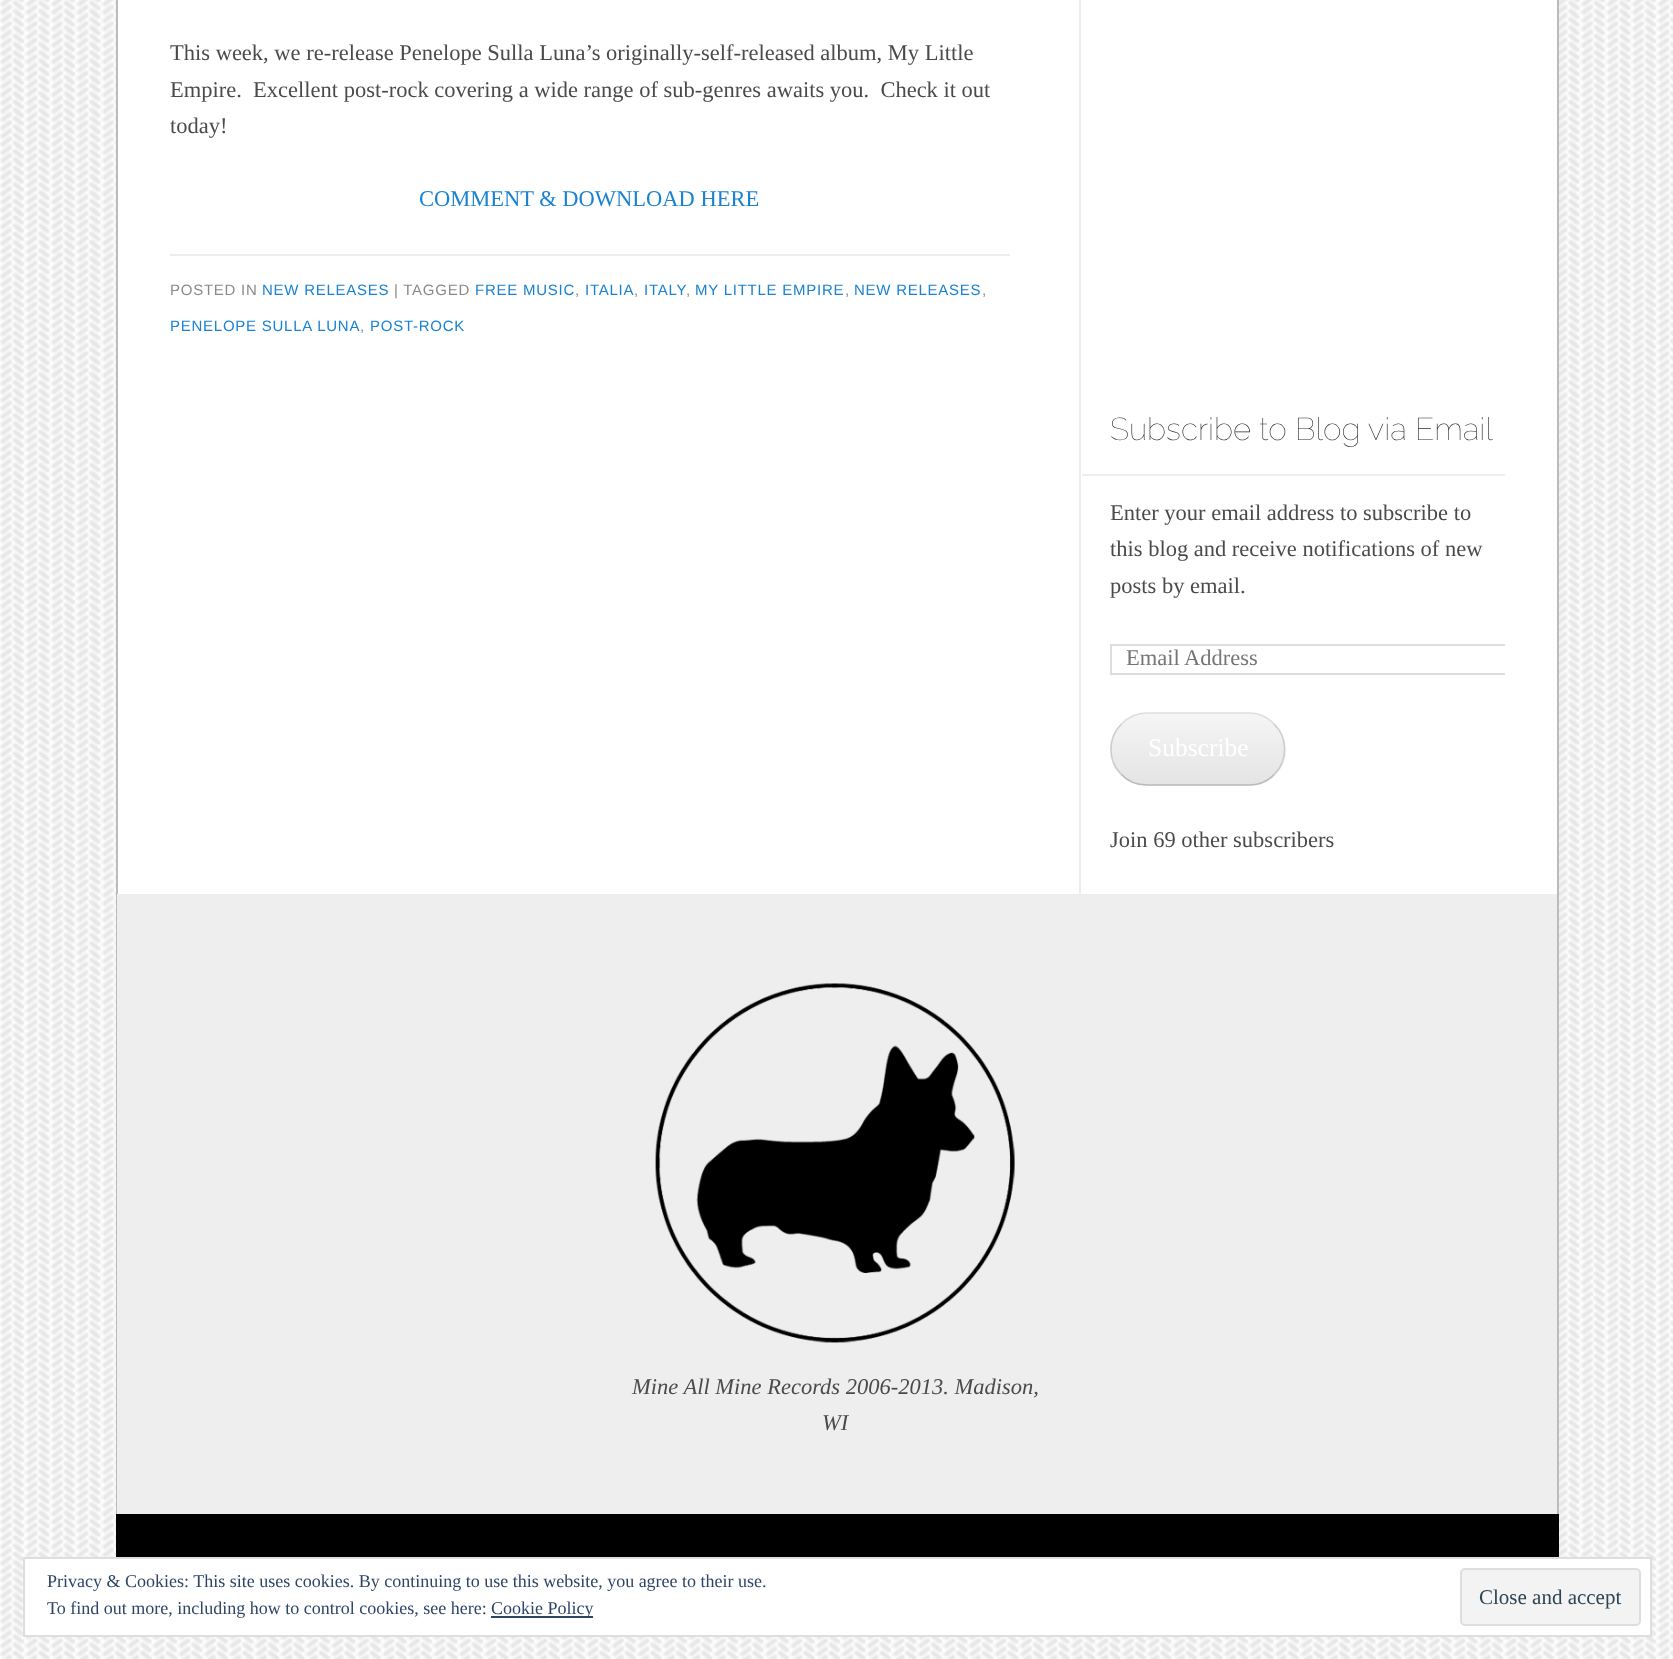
<?xml version="1.0" encoding="UTF-8"?>
<svg xmlns="http://www.w3.org/2000/svg" xmlns:xlink="http://www.w3.org/1999/xlink" width="1673" height="1659">
  <defs>
    <clipPath id="clip1"><rect x="1080" y="413" width="425" height="445" /></clipPath>
    <clipPath id="clip2"><rect x="1110" y="713" width="176" height="73" rx="36.5" /></clipPath>
    <linearGradient id="g1" gradientUnits="userSpaceOnUse" x1="1198" y1="714" x2="1198" y2="785"><stop offset="0" stop-color="#f5f5f5" /><stop offset="1" stop-color="#e4e4e4" /></linearGradient>
    <linearGradient id="g2" gradientUnits="userSpaceOnUse" x1="1198" y1="785" x2="1198" y2="855"><stop offset="0" stop-color="#f5f5f5" /><stop offset="1" stop-color="#e4e4e4" /></linearGradient>
  </defs>
  <rect width="100%" height="100%" fill="#ffffff" />
  <image x="0" y="0" width="1673" height="1659" xlink:href="image1.png" />
  <rect x="118" width="1439" height="894" fill="#ffffff" />
  <rect x="117" y="-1" width="1441" height="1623" fill="none" stroke="#bbbbbb" stroke-width="2" />
  <rect x="117" y="894" width="1440" height="620" fill="#eeeeee" />
  <rect x="170" y="254" width="840" height="2" fill="#eeeeee" />
  <rect x="1079" width="2" height="894" fill="#eeeeee" />
  <rect x="1082" y="474" width="423" height="2" fill="#eeeeee" />
  <g clip-path="url(#clip1)">
    <rect x="1111" y="645" width="406" height="29" fill="none" stroke="#dddddd" stroke-width="2" />
  </g>
  <g clip-path="url(#clip2)">
    <rect x="1110" y="714" width="176" height="71" fill="url(#g1)" />
    <rect x="1138" y="785" width="120" height="1" fill="url(#g2)" />
  </g>
  <path d="M 1121.5 724 c 6.5 -7 15.5 -11 25.5 -11 h 102 c 9.5 0 18.5 4 25 11" fill="none" stroke="#dddddd" stroke-width="1.5" />
  <path d="M 1274 724 c 14 13.5 14 37 0 50.5" fill="none" stroke="#cccccc" stroke-width="1.5" />
  <path d="M 1274 774.5 c -6.5 7 -15.5 10.5 -25 10.5 h -102 c -10 0 -19 -3.5 -25.5 -10.5" fill="none" stroke="#bbbbbb" stroke-width="1.5" />
  <path d="M 1121.5 774.5 c -14 -13.5 -14 -37 0 -50.5" fill="none" stroke="#cccccc" stroke-width="1.5" />
  <image x="630" y="957" width="411" height="411" xlink:href="image2.png" />
  <rect x="116" y="1514" width="1443" height="43" fill="#000000" />
  <rect x="24" y="1558" width="1627" height="78" fill="#ffffff" stroke="#dedede" stroke-width="2" />
  <rect x="491" y="1616" width="102" height="2" fill="#2e4467" />
  <rect x="1461" y="1569" width="179" height="56" rx="4" fill="#f3f3f3" stroke="#dedede" stroke-width="2" />
  <text x="170" y="60" style="font-family: Liberation Serif; font-size: 22.5px; fill: #4a4a4a">This week, we re-release Penelope Sulla Luna’s originally-self-released album, My Little</text>
  <text x="170" y="97" style="font-family: Liberation Serif; font-size: 22.5px; fill: #4a4a4a" xml:space="preserve">Empire.  Excellent post-rock covering a wide range of sub-genres awaits you.  Check it out</text>
  <text x="170" y="133" style="font-family: Liberation Serif; font-size: 22.5px; fill: #4a4a4a">today!</text>
  <text x="419" y="206" style="font-family: Liberation Serif; font-size: 22.5px; fill: #1982d1">COMMENT &amp; DOWNLOAD HERE</text>
  <text x="170" y="295" style="font-family: Liberation Sans; font-size: 15px; letter-spacing: 0.75px; fill: #8a8a8a">POSTED IN</text>
  <text x="262" y="295" style="font-family: Liberation Sans; font-size: 15px; letter-spacing: 0.75px; fill: #1982d1">NEW RELEASES</text>
  <text x="394" y="295" style="font-family: Liberation Sans; font-size: 15px; letter-spacing: 0.75px; fill: #8a8a8a">| TAGGED</text>
  <text x="475" y="295" style="font-family: Liberation Sans; font-size: 15px; letter-spacing: 0.75px; fill: #1982d1">FREE MUSIC</text>
  <text x="575" y="295" style="font-family: Liberation Sans; font-size: 15px; letter-spacing: 0.75px; fill: #8a8a8a">,</text>
  <text x="585" y="295" style="font-family: Liberation Sans; font-size: 15px; letter-spacing: 0.75px; fill: #1982d1">ITALIA</text>
  <text x="634" y="295" style="font-family: Liberation Sans; font-size: 15px; letter-spacing: 0.75px; fill: #8a8a8a">,</text>
  <text x="644" y="295" style="font-family: Liberation Sans; font-size: 15px; letter-spacing: 0.75px; fill: #1982d1">ITALY</text>
  <text x="686" y="295" style="font-family: Liberation Sans; font-size: 15px; letter-spacing: 0.75px; fill: #8a8a8a">,</text>
  <text x="695" y="295" style="font-family: Liberation Sans; font-size: 15px; letter-spacing: 0.75px; fill: #1982d1">MY LITTLE EMPIRE</text>
  <text x="845" y="295" style="font-family: Liberation Sans; font-size: 15px; letter-spacing: 0.75px; fill: #8a8a8a">,</text>
  <text x="854" y="295" style="font-family: Liberation Sans; font-size: 15px; letter-spacing: 0.75px; fill: #1982d1">NEW RELEASES</text>
  <text x="982" y="295" style="font-family: Liberation Sans; font-size: 15px; letter-spacing: 0.75px; fill: #8a8a8a">,</text>
  <text x="170" y="331" style="font-family: Liberation Sans; font-size: 15px; letter-spacing: 0.75px; fill: #1982d1">PENELOPE SULLA LUNA</text>
  <text x="360" y="331" style="font-family: Liberation Sans; font-size: 15px; letter-spacing: 0.75px; fill: #8a8a8a">,</text>
  <text x="370" y="331" style="font-family: Liberation Sans; font-size: 15px; letter-spacing: 0.75px; fill: #1982d1">POST-ROCK</text>
  <text x="1110" y="440" style="font-family: Raleway; font-size: 31.5px; font-weight: 100; fill: #2a2a2a">Subscribe to Blog via Email</text>
  <text x="1110" y="520" style="font-family: Liberation Serif; font-size: 22.5px; fill: #4a4a4a">Enter your email address to subscribe to</text>
  <text x="1110" y="556" style="font-family: Liberation Serif; font-size: 22.5px; fill: #4a4a4a">this blog and receive notifications of new</text>
  <text x="1110" y="593" style="font-family: Liberation Serif; font-size: 22.5px; fill: #4a4a4a">posts by email.</text>
  <text x="1126" y="665" style="font-family: Liberation Serif; font-size: 22.5px; fill: #757575">Email Address</text>
  <text x="1148" y="756" style="font-family: Liberation Serif; font-size: 25.5px; fill: #ffffff">Subscribe</text>
  <text x="1110" y="847" style="font-family: Liberation Serif; font-size: 22.5px; fill: #4a4a4a">Join 69 other subscribers</text>
  <text x="632" y="1394" style="font-family: Liberation Serif; font-size: 22.5px; font-style: italic; fill: #4a4a4a">Mine All Mine Records 2006-2013. Madison,</text>
  <text x="822" y="1430" style="font-family: Liberation Serif; font-size: 22.5px; font-style: italic; fill: #4a4a4a">WI</text>
  <text x="47" y="1587" style="font-family: Liberation Serif; font-size: 18px; fill: #2e4467">Privacy &amp; Cookies: This site uses cookies. By continuing to use this website, you agree to their use.</text>
  <text x="47" y="1614" style="font-family: Liberation Serif; font-size: 18px; fill: #2e4467">To find out more, including how to control cookies, see here:</text>
  <text x="491" y="1614" style="font-family: Liberation Serif; font-size: 18px; fill: #2e4467">Cookie Policy</text>
  <text x="1479" y="1604" style="font-family: Liberation Serif; font-size: 21px; fill: #2e4453">Close and accept</text>
</svg>
